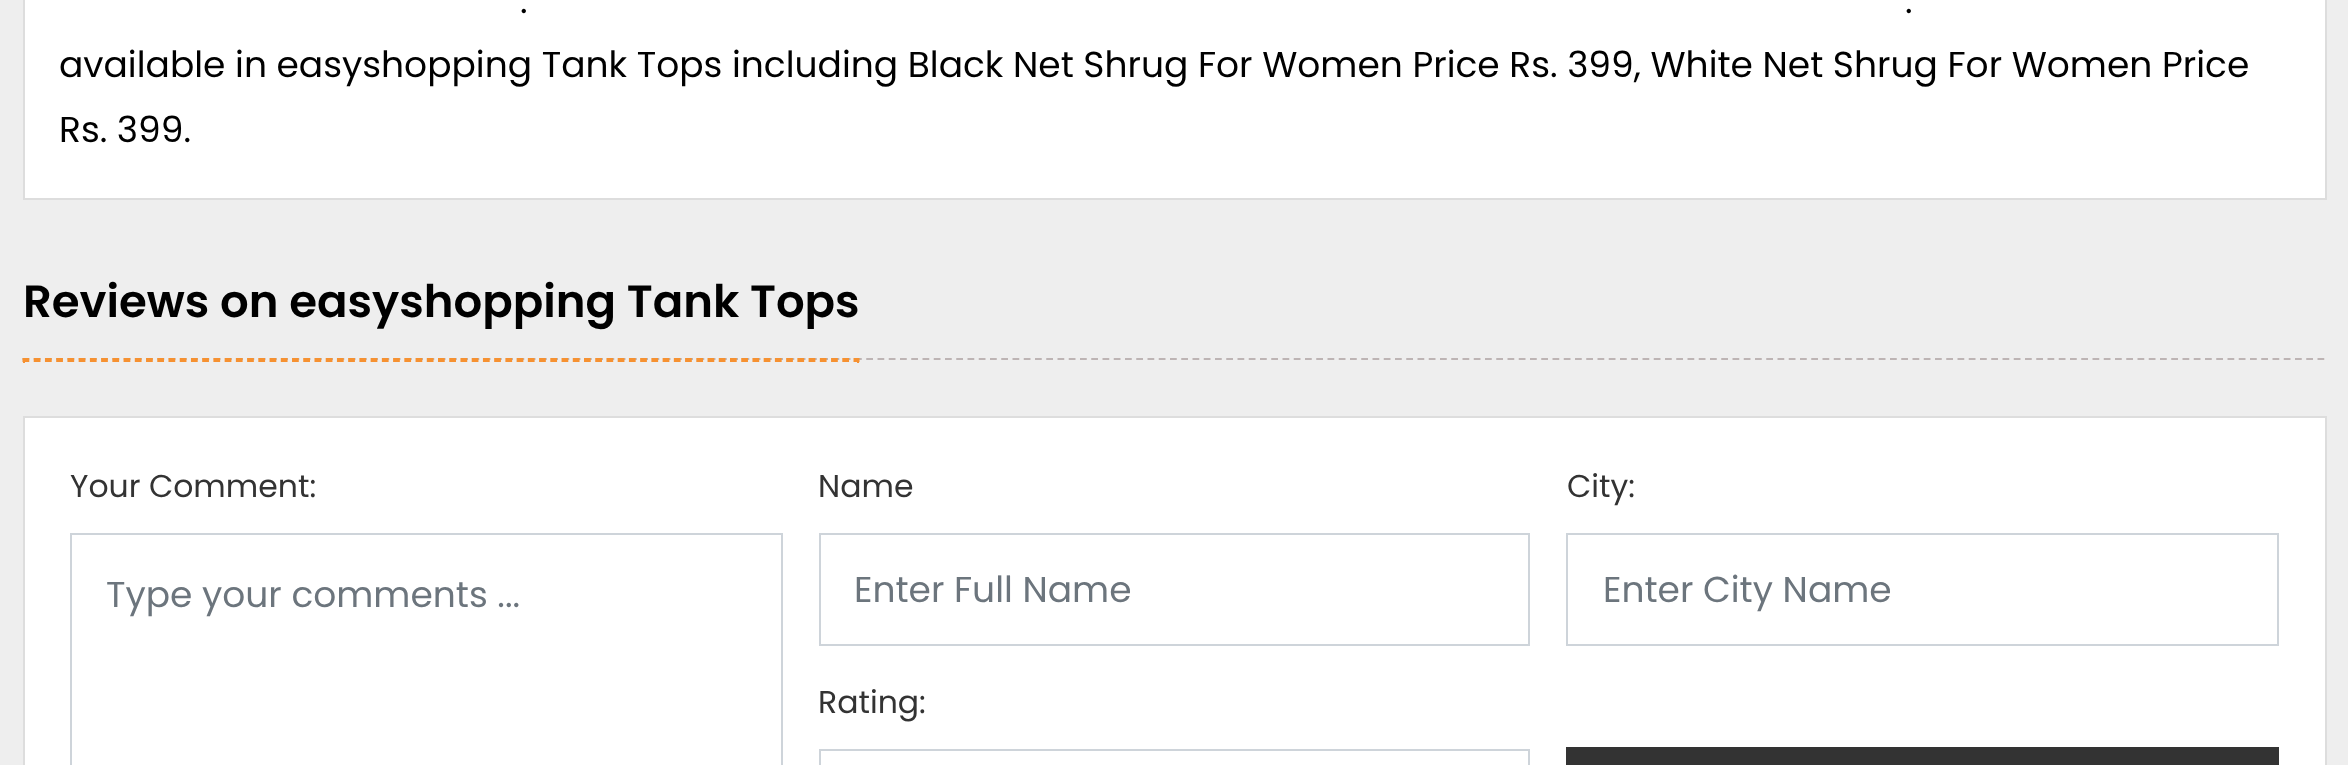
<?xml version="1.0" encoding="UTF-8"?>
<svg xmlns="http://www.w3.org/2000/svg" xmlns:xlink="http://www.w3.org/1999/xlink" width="2348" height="765">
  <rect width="100%" height="100%" fill="#eeeeee" />
  <rect x="24" y="-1" width="2302" height="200" fill="#ffffff" stroke="#dddddd" stroke-width="2" />
  <path d="M 22.5 359 h 2304" fill="none" stroke="#bdb4b4" stroke-width="2.2" stroke-dasharray="6.75 4.5" />
  <path d="M 22.5 359 h 837" fill="none" stroke="#f69131" stroke-width="2.2" stroke-dasharray="6.75 4.48" />
  <rect x="857" y="358" width="2" height="5" fill="#f69131" />
  <path d="M 22.5 361 h 837" fill="none" stroke="#f69131" stroke-width="2.2" stroke-dasharray="6.75 4.48" />
  <rect x="23" y="358" width="2" height="5" fill="#f69131" />
  <rect x="24" y="417" width="2302" height="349" fill="#ffffff" stroke="#dddddd" stroke-width="2" />
  <rect x="71" y="534" width="711" height="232" fill="none" stroke="#ced4da" stroke-width="2" />
  <rect x="820" y="534" width="709" height="111" fill="none" stroke="#ced4da" stroke-width="2" />
  <rect x="1567" y="534" width="711" height="111" fill="none" stroke="#ced4da" stroke-width="2" />
  <rect x="820" y="750" width="709" height="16" fill="none" stroke="#ced4da" stroke-width="2" />
  <rect x="1566" y="747" width="713" height="18" fill="#333333" />
  <text x="520" y="13" style="font-family: Poppins; font-size: 36px; fill: #000000">.</text>
  <text x="1905" y="13" style="font-family: Poppins; font-size: 36px; fill: #000000">.</text>
  <text x="59" y="77" style="font-family: Poppins; font-size: 36px; fill: #000000">available in easyshopping Tank Tops including Black Net Shrug For Women Price Rs. 399, White Net Shrug For Women Price</text>
  <text x="59" y="142" style="font-family: Poppins; font-size: 36px; fill: #000000">Rs. 399.</text>
  <text x="23" y="317" style="font-family: Poppins; font-size: 45px; font-weight: 600; fill: #000000">Reviews on easyshopping Tank Tops</text>
  <text x="70" y="497" style="font-family: Poppins; font-size: 31.5px; fill: #333333">Your Comment:</text>
  <text x="106" y="607" style="font-family: Poppins; font-size: 36px; fill: #6c757d">Type your comments ...</text>
  <text x="818" y="497" style="font-family: Poppins; font-size: 31.5px; fill: #333333">Name</text>
  <text x="854" y="602" style="font-family: Poppins; font-size: 36px; fill: #6c757d">Enter Full Name</text>
  <text x="1567" y="497" style="font-family: Poppins; font-size: 31.5px; fill: #333333">City:</text>
  <text x="1603" y="602" style="font-family: Poppins; font-size: 36px; fill: #6c757d">Enter City Name</text>
  <text x="818" y="713" style="font-family: Poppins; font-size: 31.5px; fill: #333333">Rating:</text>
</svg>
